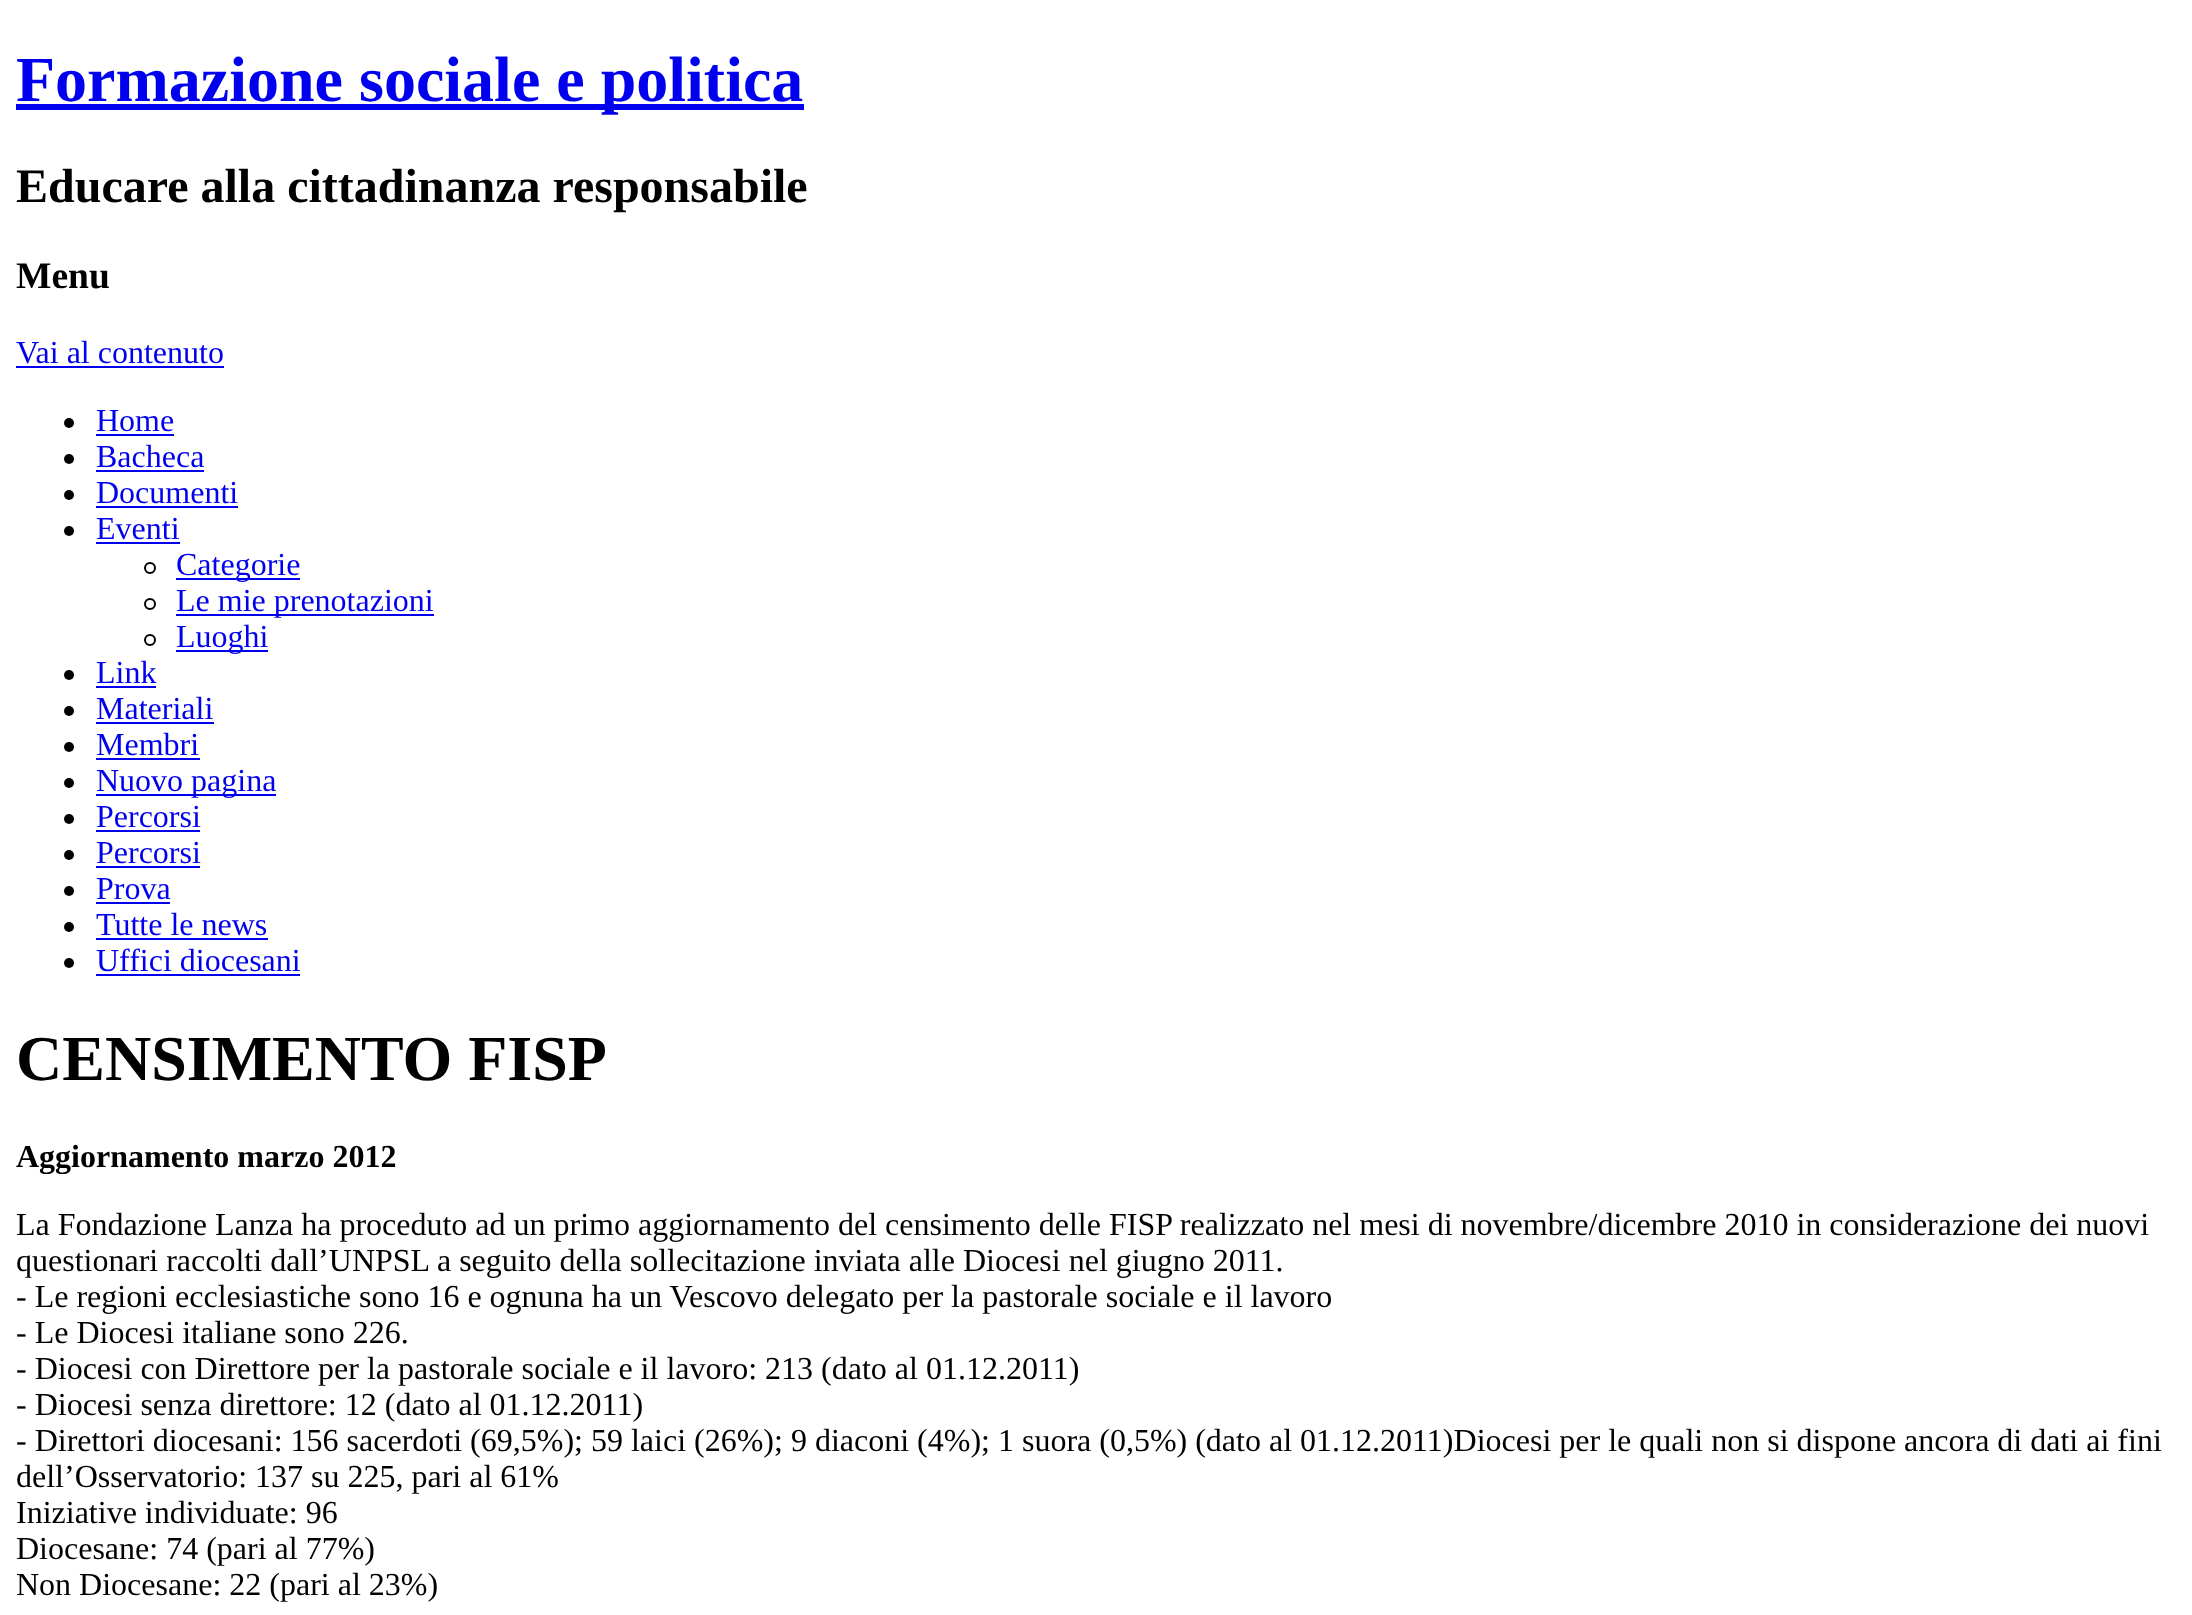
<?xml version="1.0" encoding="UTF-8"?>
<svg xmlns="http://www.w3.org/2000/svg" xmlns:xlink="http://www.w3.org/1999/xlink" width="2192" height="1615">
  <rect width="100%" height="100%" fill="#ffffff" />
  <rect x="16" y="104" width="788" height="6" fill="#0000ee" />
  <rect x="16" y="366" width="208" height="2" fill="#0000ee" />
  <circle cx="69" cy="423" r="5" fill="#000000" />
  <rect x="96" y="434" width="78" height="2" fill="#0000ee" />
  <circle cx="69" cy="459" r="5" fill="#000000" />
  <rect x="96" y="470" width="108" height="2" fill="#0000ee" />
  <circle cx="69" cy="495" r="5" fill="#000000" />
  <rect x="96" y="506" width="142" height="2" fill="#0000ee" />
  <circle cx="69" cy="531" r="5" fill="#000000" />
  <rect x="96" y="542" width="84" height="2" fill="#0000ee" />
  <circle cx="150" cy="568" r="5" fill="none" stroke="#000000" stroke-width="2" />
  <rect x="176" y="578" width="124" height="2" fill="#0000ee" />
  <circle cx="150" cy="604" r="5" fill="none" stroke="#000000" stroke-width="2" />
  <rect x="176" y="614" width="258" height="2" fill="#0000ee" />
  <circle cx="150" cy="640" r="5" fill="none" stroke="#000000" stroke-width="2" />
  <rect x="176" y="650" width="92" height="2" fill="#0000ee" />
  <circle cx="69" cy="675" r="5" fill="#000000" />
  <rect x="96" y="686" width="60" height="2" fill="#0000ee" />
  <circle cx="69" cy="711" r="5" fill="#000000" />
  <rect x="96" y="722" width="118" height="2" fill="#0000ee" />
  <circle cx="69" cy="747" r="5" fill="#000000" />
  <rect x="96" y="758" width="104" height="2" fill="#0000ee" />
  <circle cx="69" cy="783" r="5" fill="#000000" />
  <rect x="96" y="794" width="180" height="2" fill="#0000ee" />
  <circle cx="69" cy="819" r="5" fill="#000000" />
  <rect x="96" y="830" width="104" height="2" fill="#0000ee" />
  <circle cx="69" cy="855" r="5" fill="#000000" />
  <rect x="96" y="866" width="104" height="2" fill="#0000ee" />
  <circle cx="69" cy="891" r="5" fill="#000000" />
  <rect x="96" y="902" width="74" height="2" fill="#0000ee" />
  <circle cx="69" cy="927" r="5" fill="#000000" />
  <rect x="96" y="938" width="172" height="2" fill="#0000ee" />
  <circle cx="69" cy="963" r="5" fill="#000000" />
  <rect x="96" y="974" width="204" height="2" fill="#0000ee" />
  <text x="16" y="101" style="font-family: Liberation Serif; font-size: 64px; font-weight: bold; fill: #0000ee">Formazione sociale e politica</text>
  <text x="16" y="202" style="font-family: Liberation Serif; font-size: 48px; font-weight: bold; fill: #000000">Educare alla cittadinanza responsabile</text>
  <text x="16" y="288" style="font-family: Liberation Serif; font-size: 37.5px; font-weight: bold; fill: #000000">Menu</text>
  <text x="16" y="363" style="font-family: Liberation Serif; font-size: 32px; fill: #0000ee">Vai al contenuto</text>
  <text x="96" y="431" style="font-family: Liberation Serif; font-size: 32px; fill: #0000ee">Home</text>
  <text x="96" y="467" style="font-family: Liberation Serif; font-size: 32px; fill: #0000ee">Bacheca</text>
  <text x="96" y="503" style="font-family: Liberation Serif; font-size: 32px; fill: #0000ee">Documenti</text>
  <text x="96" y="539" style="font-family: Liberation Serif; font-size: 32px; fill: #0000ee">Eventi</text>
  <text x="176" y="575" style="font-family: Liberation Serif; font-size: 32px; fill: #0000ee">Categorie</text>
  <text x="176" y="611" style="font-family: Liberation Serif; font-size: 32px; fill: #0000ee">Le mie prenotazioni</text>
  <text x="176" y="647" style="font-family: Liberation Serif; font-size: 32px; fill: #0000ee">Luoghi</text>
  <text x="96" y="683" style="font-family: Liberation Serif; font-size: 32px; fill: #0000ee">Link</text>
  <text x="96" y="719" style="font-family: Liberation Serif; font-size: 32px; fill: #0000ee">Materiali</text>
  <text x="96" y="755" style="font-family: Liberation Serif; font-size: 32px; fill: #0000ee">Membri</text>
  <text x="96" y="791" style="font-family: Liberation Serif; font-size: 32px; fill: #0000ee">Nuovo pagina</text>
  <text x="96" y="827" style="font-family: Liberation Serif; font-size: 32px; fill: #0000ee">Percorsi</text>
  <text x="96" y="863" style="font-family: Liberation Serif; font-size: 32px; fill: #0000ee">Percorsi</text>
  <text x="96" y="899" style="font-family: Liberation Serif; font-size: 32px; fill: #0000ee">Prova</text>
  <text x="96" y="935" style="font-family: Liberation Serif; font-size: 32px; fill: #0000ee">Tutte le news</text>
  <text x="96" y="971" style="font-family: Liberation Serif; font-size: 32px; fill: #0000ee">Uffici diocesani</text>
  <text x="16" y="1080" style="font-family: Liberation Serif; font-size: 64px; font-weight: bold; fill: #000000">CENSIMENTO FISP</text>
  <text x="16" y="1167" style="font-family: Liberation Serif; font-size: 32px; font-weight: bold; fill: #000000">Aggiornamento marzo 2012</text>
  <text x="16" y="1235" style="font-family: Liberation Serif; font-size: 32px; fill: #000000">La Fondazione Lanza ha proceduto ad un primo aggiornamento del censimento delle FISP realizzato nel mesi di novembre/dicembre 2010 in considerazione dei nuovi</text>
  <text x="16" y="1271" style="font-family: Liberation Serif; font-size: 32px; fill: #000000">questionari raccolti dall’UNPSL a seguito della sollecitazione inviata alle Diocesi nel giugno 2011.</text>
  <text x="16" y="1307" style="font-family: Liberation Serif; font-size: 32px; fill: #000000">- Le regioni ecclesiastiche sono 16 e ognuna ha un Vescovo delegato per la pastorale sociale e il lavoro</text>
  <text x="16" y="1343" style="font-family: Liberation Serif; font-size: 32px; fill: #000000">- Le Diocesi italiane sono 226.</text>
  <text x="16" y="1379" style="font-family: Liberation Serif; font-size: 32px; fill: #000000">- Diocesi con Direttore per la pastorale sociale e il lavoro: 213 (dato al 01.12.2011)</text>
  <text x="16" y="1415" style="font-family: Liberation Serif; font-size: 32px; fill: #000000">- Diocesi senza direttore: 12 (dato al 01.12.2011)</text>
  <text x="16" y="1451" style="font-family: Liberation Serif; font-size: 32px; fill: #000000">- Direttori diocesani: 156 sacerdoti (69,5%); 59 laici (26%); 9 diaconi (4%); 1 suora (0,5%) (dato al 01.12.2011)Diocesi per le quali non si dispone ancora di dati ai fini</text>
  <text x="16" y="1487" style="font-family: Liberation Serif; font-size: 32px; fill: #000000">dell’Osservatorio: 137 su 225, pari al 61%</text>
  <text x="16" y="1523" style="font-family: Liberation Serif; font-size: 32px; fill: #000000">Iniziative individuate: 96</text>
  <text x="16" y="1559" style="font-family: Liberation Serif; font-size: 32px; fill: #000000">Diocesane: 74 (pari al 77%)</text>
  <text x="16" y="1595" style="font-family: Liberation Serif; font-size: 32px; fill: #000000">Non Diocesane: 22 (pari al 23%)</text>
</svg>
